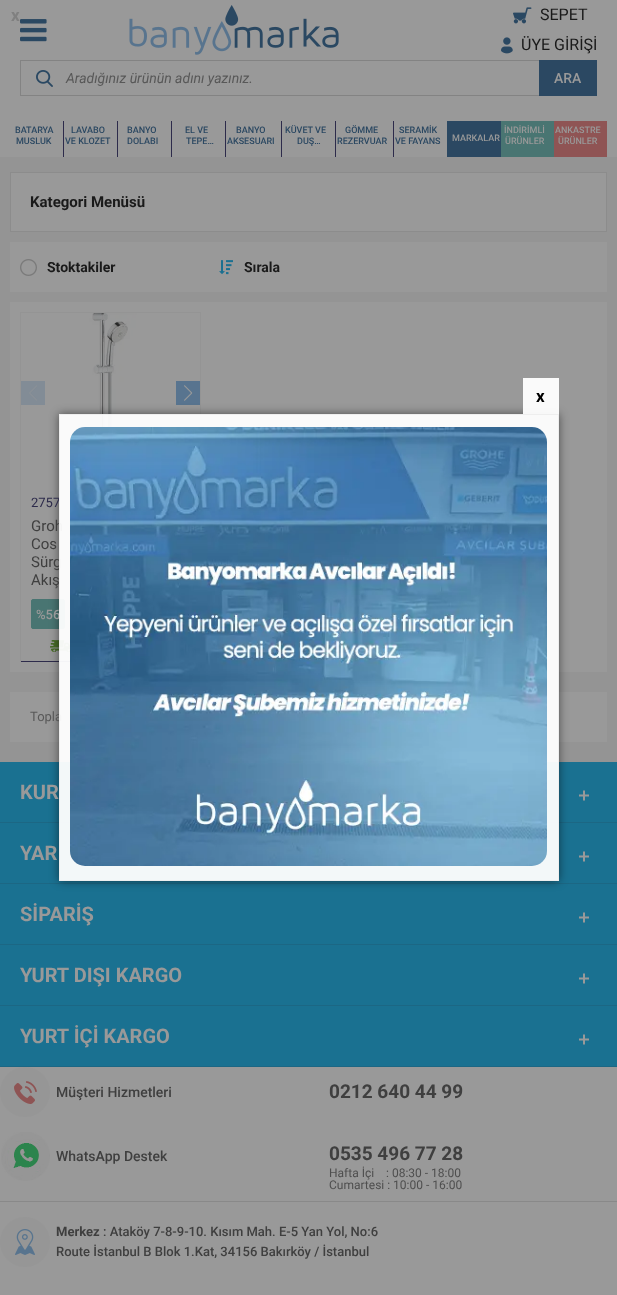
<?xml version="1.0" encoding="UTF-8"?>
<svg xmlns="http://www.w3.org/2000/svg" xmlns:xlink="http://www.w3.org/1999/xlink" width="617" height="1295">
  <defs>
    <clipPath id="clip1"><path d="M 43 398 h 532 v 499 h -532 z m 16 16 h 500 v 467 h -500 z" clip-rule="evenodd" /></clipPath>
  </defs>
  <rect width="100%" height="100%" fill="#949494" />
  <rect width="617" height="157" fill="#999999" />
  <image x="20" y="19" width="27" height="23" xlink:href="image1.png" />
  <image x="129" y="5" width="210" height="50" xlink:href="image2.png" />
  <image x="513" y="7" width="19" height="17" xlink:href="image3.png" />
  <image x="501" y="37" width="12" height="17" xlink:href="image4.png" />
  <image x="36" y="70" width="17" height="17" xlink:href="image5.png" />
  <rect x="20.5" y="60.5" width="520" height="35" fill="none" stroke="#838383" />
  <rect x="539" y="60" width="58" height="36" fill="#2b4862" />
  <rect x="63" y="121" width="1" height="36" fill="#2d2b4b" />
  <rect x="117" y="121" width="1" height="36" fill="#2d2b4b" />
  <rect x="171" y="121" width="1" height="36" fill="#2d2b4b" />
  <rect x="225" y="121" width="1" height="36" fill="#2d2b4b" />
  <rect x="281" y="121" width="1" height="36" fill="#2d2b4b" />
  <rect x="335" y="121" width="1" height="36" fill="#2d2b4b" />
  <rect x="393" y="121" width="1" height="36" fill="#2d2b4b" />
  <rect x="447" y="121" width="54" height="36" fill="#2b4862" />
  <rect x="501" y="121" width="53" height="36" fill="#497572" />
  <rect x="554" y="121" width="53" height="36" fill="#8f5454" />
  <rect x="10.5" y="172.5" width="596" height="59" fill="#999999" stroke="#8c8c8c" />
  <rect x="10" y="242" width="597" height="50" fill="#999999" />
  <image x="20" y="259" width="17" height="17" xlink:href="image6.png" />
  <image x="219" y="260" width="14" height="15" xlink:href="image7.png" />
  <rect x="10" y="302" width="597" height="370" fill="#999999" />
  <rect x="20" y="312" width="181" height="1" fill="#949494" />
  <rect x="200" y="312" width="1" height="115" fill="#949494" />
  <rect x="20" y="661" width="50" height="1" fill="#2d2b4b" />
  <rect x="20" y="312" width="1" height="350" fill="#949494" />
  <image x="21" y="313" width="179" height="179" xlink:href="image8.png" />
  <rect x="21" y="381" width="24" height="24" fill="#828c96" />
  <image x="29" y="385" width="8" height="16" xlink:href="image9.png" />
  <rect x="176" y="381" width="24" height="24" fill="#58748f" />
  <image x="184" y="385" width="9" height="16" xlink:href="image10.png" />
  <rect x="31.5" y="599.5" width="33" height="29" rx="1.5" fill="#497572" stroke="#497572" />
  <image x="50" y="640" width="20" height="12" xlink:href="image11.png" />
  <rect x="10" y="692" width="597" height="50" fill="#999999" />
  <rect y="1067" width="617" height="228" fill="#999999" />
  <rect y="762" width="617" height="60" fill="#1a7191" />
  <rect y="822" width="617" height="1" fill="#1c6784" />
  <image x="579" y="790" width="10" height="11" xlink:href="image12.png" />
  <rect y="823" width="617" height="60" fill="#1a7191" />
  <rect y="883" width="617" height="1" fill="#1c6784" />
  <image x="579" y="851" width="10" height="11" xlink:href="image12.png" />
  <rect y="884" width="617" height="60" fill="#1a7191" />
  <rect y="944" width="617" height="1" fill="#1c6784" />
  <image x="579" y="912" width="10" height="11" xlink:href="image12.png" />
  <rect y="945" width="617" height="60" fill="#1a7191" />
  <rect y="1005" width="617" height="1" fill="#1c6784" />
  <image x="579" y="973" width="10" height="11" xlink:href="image12.png" />
  <rect y="1006" width="617" height="60" fill="#1a7191" />
  <rect y="1066" width="617" height="1" fill="#1c6784" />
  <image x="579" y="1034" width="10" height="11" xlink:href="image12.png" />
  <rect y="1201" width="617" height="1" fill="#898989" />
  <image x="0" y="1067" width="50" height="50" xlink:href="image13.png" />
  <image x="1" y="1132" width="49" height="49" xlink:href="image14.png" />
  <image x="0" y="1217" width="50" height="50" xlink:href="image15.png" />
  <g clip-path="url(#clip1)">
    <rect x="59" y="414" width="500" height="467" fill="#000000" fill-opacity="0.5" filter="blur(5px)" />
  </g>
  <rect x="523" y="378" width="36" height="36" fill="#ffffff" fill-opacity="0.95" />
  <text x="540" y="20" style="font-family: Roboto; font-size: 16px; fill: #1a1a1a">SEPET</text>
  <text x="521" y="50" style="font-family: Roboto; font-size: 16px; fill: #1a1a1a">ÜYE GİRİŞİ</text>
  <text x="66" y="83" style="font-family: Roboto; font-size: 14px; font-style: italic; fill: #585858">Aradığınız ürünün adını yazınız.</text>
  <text x="554" y="83" style="font-family: Roboto; font-size: 14px; font-weight: 500; fill: #999999">ARA</text>
  <text x="15" y="133" style="font-family: Roboto; font-size: 9px; font-weight: 500; fill: #2b4862">BATARYA</text>
  <text x="16" y="144" style="font-family: Roboto; font-size: 9px; font-weight: 500; fill: #2b4862">MUSLUK</text>
  <text x="71" y="133" style="font-family: Roboto; font-size: 9px; font-weight: 500; fill: #2b4862">LAVABO</text>
  <text x="65" y="144" style="font-family: Roboto; font-size: 9px; font-weight: 500; fill: #2b4862">VE KLOZET</text>
  <text x="127" y="133" style="font-family: Roboto; font-size: 9px; font-weight: 500; fill: #2b4862">BANYO</text>
  <text x="127" y="144" style="font-family: Roboto; font-size: 9px; font-weight: 500; fill: #2b4862">DOLABI</text>
  <text x="185" y="133" style="font-family: Roboto; font-size: 9px; font-weight: 500; fill: #2b4862">EL VE</text>
  <text x="186" y="144" style="font-family: Roboto; font-size: 9px; font-weight: 500; fill: #2b4862">TEPE…</text>
  <text x="236" y="133" style="font-family: Roboto; font-size: 9px; font-weight: 500; fill: #2b4862">BANYO</text>
  <text x="227" y="144" style="font-family: Roboto; font-size: 9px; font-weight: 500; fill: #2b4862">AKSESUARI</text>
  <text x="285" y="133" style="font-family: Roboto; font-size: 9px; font-weight: 500; fill: #2b4862">KÜVET VE</text>
  <text x="297" y="144" style="font-family: Roboto; font-size: 9px; font-weight: 500; fill: #2b4862">DUŞ…</text>
  <text x="345" y="133" style="font-family: Roboto; font-size: 9px; font-weight: 500; fill: #2b4862">GÖMME</text>
  <text x="337" y="144" style="font-family: Roboto; font-size: 9px; font-weight: 500; fill: #2b4862">REZERVUAR</text>
  <text x="399" y="133" style="font-family: Roboto; font-size: 9px; font-weight: 500; fill: #2b4862">SERAMİK</text>
  <text x="395" y="144" style="font-family: Roboto; font-size: 9px; font-weight: 500; fill: #2b4862">VE FAYANS</text>
  <text x="452" y="141" style="font-family: Roboto; font-size: 9px; font-weight: 500; fill: #999999">MARKALAR</text>
  <text x="504" y="133" style="font-family: Roboto; font-size: 9px; font-weight: 500; fill: #999999">İNDİRİMLİ</text>
  <text x="505" y="144" style="font-family: Roboto; font-size: 9px; font-weight: 500; fill: #999999">ÜRÜNLER</text>
  <text x="555" y="133" style="font-family: Roboto; font-size: 9px; font-weight: 500; fill: #999999">ANKASTRE</text>
  <text x="558" y="144" style="font-family: Roboto; font-size: 9px; font-weight: 500; fill: #999999">ÜRÜNLER</text>
  <text x="30" y="207" style="font-family: Roboto; font-size: 15px; font-weight: bold; fill: #1a1a1a">Kategori Menüsü</text>
  <text x="47" y="272" style="font-family: Roboto; font-size: 14px; font-weight: bold; fill: #1a1a1a">Stoktakiler</text>
  <text x="244" y="272" style="font-family: Roboto; font-size: 14px; font-weight: bold; fill: #1a1a1a">Sırala</text>
  <text x="31" y="507" style="font-family: Roboto; font-size: 13px; fill: #2d2b4b">2757</text>
  <text x="31" y="531" style="font-family: Roboto; font-size: 15px; fill: #3f3f3f">Groh</text>
  <text x="31" y="549" style="font-family: Roboto; font-size: 15px; fill: #3f3f3f">Cos</text>
  <text x="31" y="567" style="font-family: Roboto; font-size: 15px; fill: #3f3f3f">Sürg</text>
  <text x="31" y="585" style="font-family: Roboto; font-size: 15px; fill: #3f3f3f">Akış</text>
  <text x="36" y="619" style="font-family: Roboto; font-size: 13px; font-weight: 500; fill: #999999">%56</text>
  <text x="30" y="721" style="font-family: Roboto; font-size: 13px; fill: #585858">Topla</text>
  <text x="20" y="799" style="font-family: Roboto; font-size: 20px; font-weight: bold; fill: #999999">KUR</text>
  <text x="20" y="860" style="font-family: Roboto; font-size: 20px; font-weight: bold; fill: #999999">YAR</text>
  <text x="20" y="921" style="font-family: Roboto; font-size: 20px; font-weight: bold; fill: #999999">SİPARİŞ</text>
  <text x="20" y="982" style="font-family: Roboto; font-size: 20px; font-weight: bold; fill: #999999">YURT DIŞI KARGO</text>
  <text x="20" y="1043" style="font-family: Roboto; font-size: 20px; font-weight: bold; fill: #999999">YURT İÇİ KARGO</text>
  <text x="56" y="1097" style="font-family: Roboto; font-size: 14px; font-weight: 500; fill: #3f3f3f">Müşteri Hizmetleri</text>
  <text x="329" y="1098" style="font-family: Roboto; font-size: 19px; font-weight: bold; fill: #3f3f3f">0212 640 44 99</text>
  <text x="56" y="1161" style="font-family: Roboto; font-size: 14px; font-weight: 500; fill: #3f3f3f">WhatsApp Destek</text>
  <text x="329" y="1160" style="font-family: Roboto; font-size: 19px; font-weight: bold; fill: #3f3f3f">0535 496 77 28</text>
  <text x="329" y="1177" style="font-family: Roboto; font-size: 12px; fill: #4e4e4e" xml:space="preserve">Hafta İçi    : 08:30 - 18:00</text>
  <text x="329" y="1189" style="font-family: Roboto; font-size: 12px; fill: #4e4e4e">Cumartesi : 10:00 - 16:00</text>
  <text x="56" y="1236" style="font-family: Roboto; font-size: 13px; font-weight: bold; fill: #3f3f3f">Merkez</text>
  <text x="103" y="1236" style="font-family: Roboto; font-size: 13px; font-weight: 500; fill: #3f3f3f">: Ataköy 7-8-9-10. Kısım Mah. E-5 Yan Yol, No:6</text>
  <text x="56" y="1256" style="font-family: Roboto; font-size: 13px; font-weight: 500; fill: #3f3f3f">Route İstanbul B Blok 1.Kat, 34156 Bakırköy / İstanbul</text>
  <text x="11" y="21" style="font-family: Roboto; font-size: 17px; font-weight: bold; fill: #808080">x</text>
  <rect x="59.5" y="414.5" width="499" height="466" fill="#ffffff" fill-opacity="0.95" stroke="#eeeeee" />
  <text x="536" y="402" style="font-family: Roboto; font-size: 17px; font-weight: bold; fill: #000000">x</text>
  <image x="70" y="427" width="477" height="439" xlink:href="image16.png" />
</svg>
